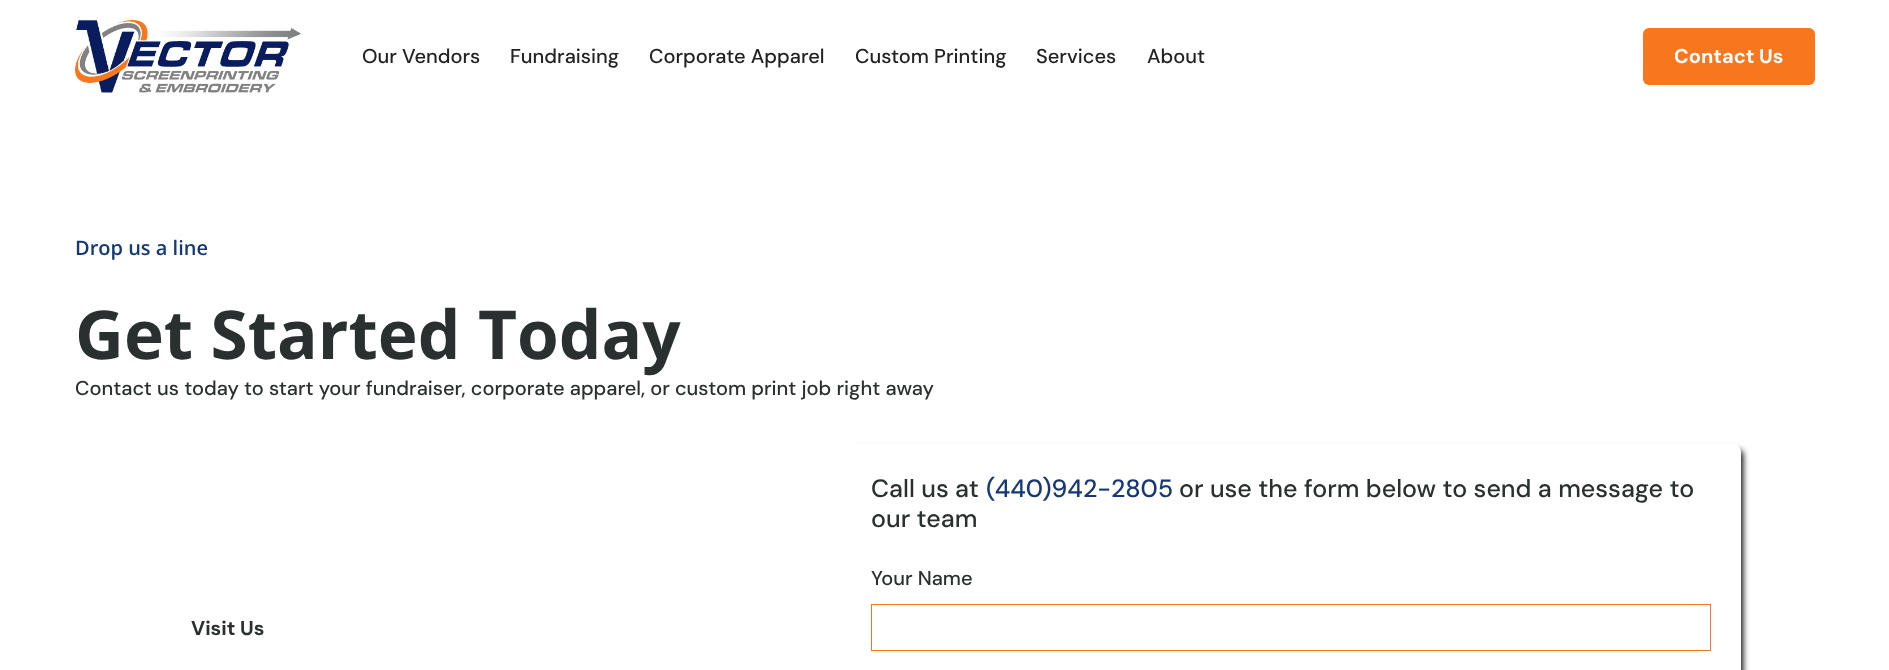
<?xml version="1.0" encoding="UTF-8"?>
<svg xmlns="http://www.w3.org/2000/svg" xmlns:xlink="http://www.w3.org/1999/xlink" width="1889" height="670">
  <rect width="100%" height="100%" fill="#ffffff" />
  <image x="75" y="20" width="227" height="73" xlink:href="image1.png" />
  <rect x="1643" y="28" width="172" height="57" rx="6" fill="#f7761e" />
  <rect x="848" y="450" width="895" height="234" rx="5" fill="#000000" filter="blur(3px)" />
  <rect x="841" y="444" width="900" height="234" rx="8" fill="#ffffff" />
  <rect x="871.5" y="604.5" width="839" height="46" fill="none" stroke="#f7761e" />
  <text x="362" y="63" style="font-family: DM Sans; font-size: 20px; font-weight: 500; fill: #222222">Our Vendors</text>
  <text x="510" y="63" style="font-family: DM Sans; font-size: 20px; font-weight: 500; fill: #222222">Fundraising</text>
  <text x="649" y="63" style="font-family: DM Sans; font-size: 20px; font-weight: 500; fill: #222222">Corporate Apparel</text>
  <text x="855" y="63" style="font-family: DM Sans; font-size: 20px; font-weight: 500; fill: #222222">Custom Printing</text>
  <text x="1036" y="63" style="font-family: DM Sans; font-size: 20px; font-weight: 500; fill: #222222">Services</text>
  <text x="1147" y="63" style="font-family: DM Sans; font-size: 20px; font-weight: 500; fill: #222222">About</text>
  <text x="1674" y="63" style="font-family: DM Sans; font-size: 20px; font-weight: bold; fill: #ffffff">Contact Us</text>
  <text x="75" y="255" style="font-family: Open Sans; font-size: 20px; font-weight: 600; fill: #163874">Drop us a line</text>
  <text x="75" y="359" style="font-family: Open Sans; font-size: 67.5px; font-weight: bold; fill: #2a3030">Get Started Today</text>
  <text x="75" y="395" style="font-family: DM Sans; font-size: 20px; font-weight: 500; fill: #2a3030">Contact us today to start your fundraiser, corporate apparel, or custom print job right away</text>
  <text x="871" y="497" style="font-family: DM Sans; font-size: 25px; font-weight: 500; fill: #2a3030">Call us at</text>
  <text x="986" y="497" style="font-family: DM Sans; font-size: 25px; font-weight: 500; fill: #163874">(440)942-2805</text>
  <text x="1179" y="497" style="font-family: DM Sans; font-size: 25px; font-weight: 500; fill: #2a3030">or use the form below to send a message to</text>
  <text x="871" y="527" style="font-family: DM Sans; font-size: 25px; font-weight: 500; fill: #2a3030">our team</text>
  <text x="871" y="585" style="font-family: DM Sans; font-size: 20px; font-weight: 500; fill: #2a3030">Your Name</text>
  <text x="191" y="635" style="font-family: DM Sans; font-size: 20px; font-weight: bold; fill: #2a3030">Visit Us</text>
</svg>
